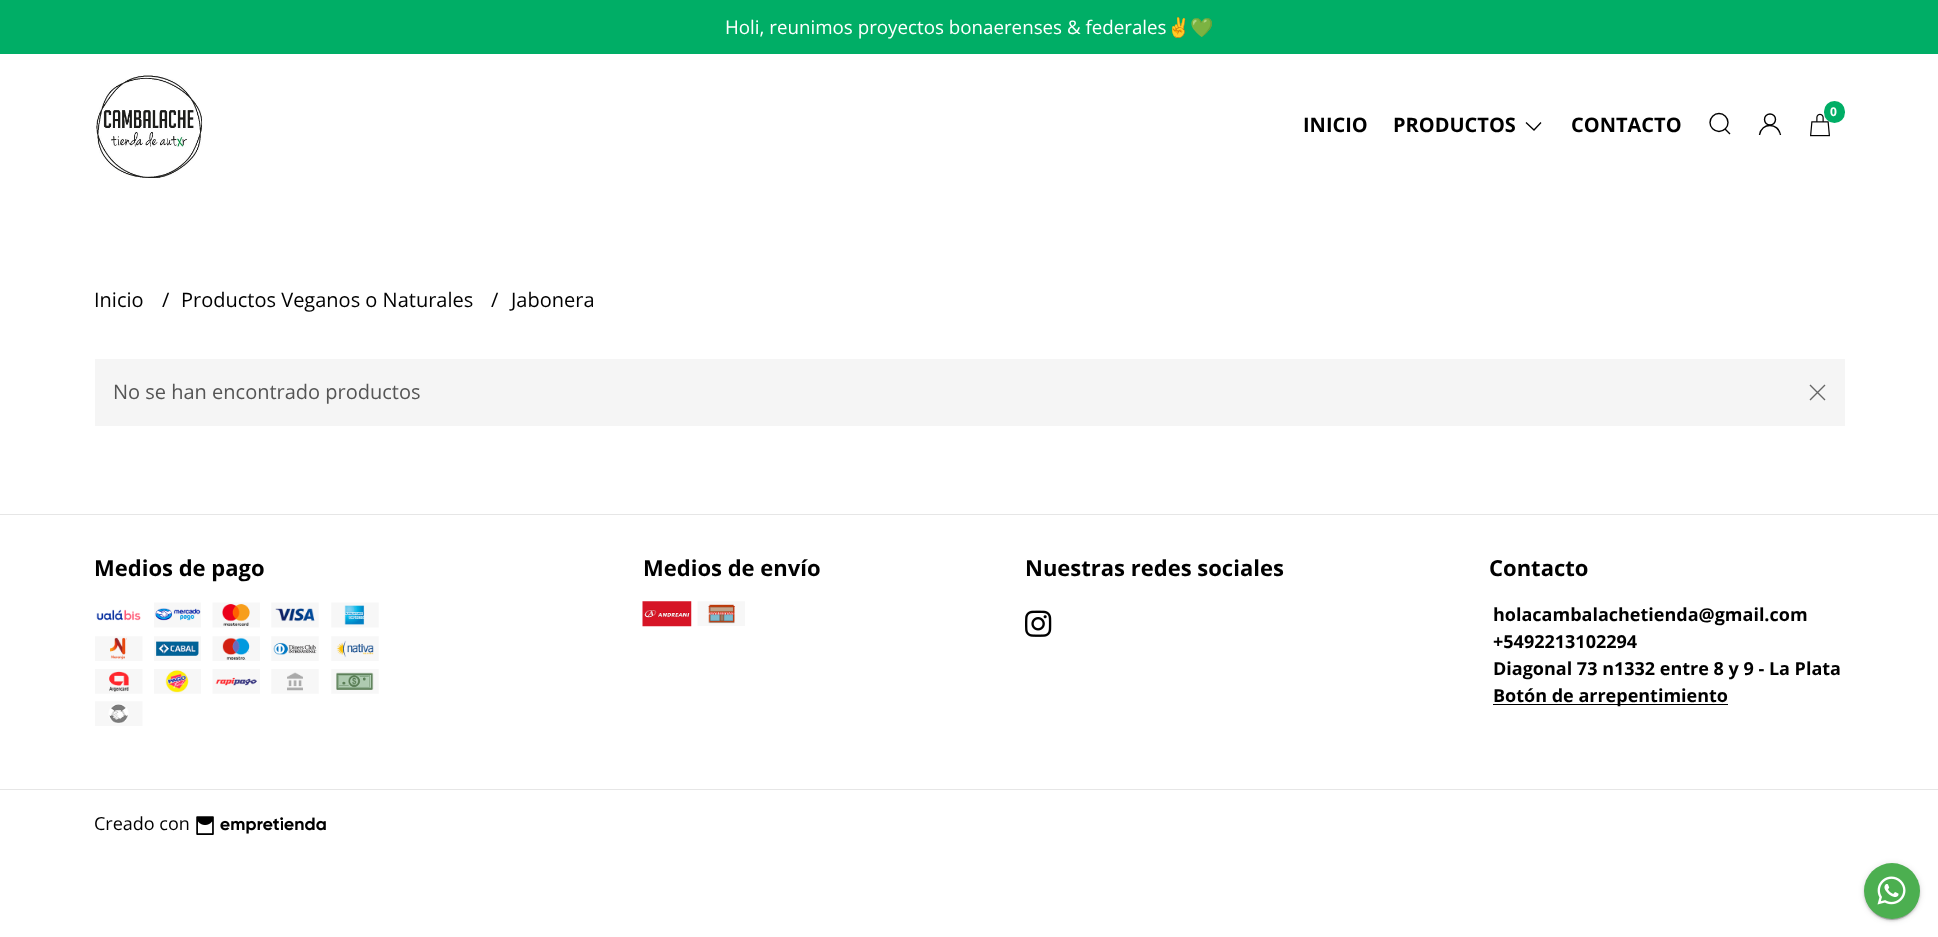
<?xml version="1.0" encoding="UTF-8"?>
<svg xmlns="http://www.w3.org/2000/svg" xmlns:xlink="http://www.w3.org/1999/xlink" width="1938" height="937">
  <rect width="100%" height="100%" fill="#ffffff" />
  <rect width="1938" height="54" fill="#00ae66" />
  <image x="96" y="75" width="107" height="103" xlink:href="image1.png" />
  <path d="M 1541 122.5 l -7 7.5 l -8 -7.5" fill="none" stroke="#000000" stroke-width="1.3" />
  <circle cx="1719" cy="122.5" r="9" fill="none" stroke="#000000" stroke-width="1.4" />
  <path d="M 1725 129 l 5 5 z" fill="none" stroke="#000000" stroke-width="1.4" />
  <circle cx="1770" cy="119.5" r="5.5" fill="none" stroke="#000000" stroke-width="1.4" />
  <path d="M 1759.5 135 c 2 -13 19 -12.5 21 0" fill="none" stroke="#000000" stroke-width="1.4" />
  <image x="1810" y="113" width="20" height="24" xlink:href="image2.png" />
  <rect x="1824" y="101" width="21" height="22" rx="10.5" fill="#00ae66" />
  <rect x="95" y="359" width="1750" height="67" fill="#f5f5f5" />
  <path d="M 1810 385 l 15 15 m 0 -15 l -15 15" fill="none" stroke="#666666" stroke-width="1.4" />
  <rect y="514" width="1938" height="1" fill="#e6e6e6" />
  <image x="96" y="609" width="45" height="12" xlink:href="image3.png" />
  <image x="154" y="602" width="47" height="26" xlink:href="image4.png" />
  <image x="212" y="602" width="48" height="26" xlink:href="image5.png" />
  <image x="271" y="602" width="48" height="26" xlink:href="image6.png" />
  <image x="331" y="602" width="48" height="26" xlink:href="image7.png" />
  <image x="95" y="636" width="48" height="25" xlink:href="image8.png" />
  <image x="154" y="636" width="47" height="25" xlink:href="image9.png" />
  <image x="212" y="636" width="48" height="25" xlink:href="image10.png" />
  <image x="271" y="636" width="48" height="25" xlink:href="image11.png" />
  <image x="331" y="636" width="48" height="25" xlink:href="image12.png" />
  <image x="95" y="669" width="48" height="25" xlink:href="image13.png" />
  <image x="154" y="669" width="47" height="25" xlink:href="image14.png" />
  <image x="212" y="669" width="48" height="25" xlink:href="image15.png" />
  <image x="271" y="669" width="48" height="25" xlink:href="image16.png" />
  <image x="331" y="669" width="48" height="25" xlink:href="image17.png" />
  <image x="95" y="701" width="48" height="25" xlink:href="image18.png" />
  <image x="642" y="601" width="50" height="26" xlink:href="image19.png" />
  <image x="697" y="601" width="48" height="25" xlink:href="image20.png" />
  <image x="1025" y="610" width="27" height="27" xlink:href="image21.png" />
  <rect x="1493" y="704" width="235" height="1" fill="#000000" />
  <rect y="789" width="1938" height="1" fill="#e6e6e6" />
  <image x="196" y="816" width="130" height="19" xlink:href="image22.png" />
  <rect x="1866" y="869" width="52" height="51" rx="25.5" fill="#000000" fill-opacity="0.2" filter="blur(0.5px)" />
  <rect x="1864" y="864" width="56" height="56" rx="28" fill="#000000" fill-opacity="0.12" filter="blur(3px)" />
  <rect x="1864" y="865" width="56" height="56" rx="28" fill="#000000" fill-opacity="0.14" filter="blur(1px)" />
  <circle cx="1892" cy="891" r="28" fill="#4caf50" />
  <image x="1877" y="876" width="29" height="29" xlink:href="image23.png" />
  <text x="725" y="34" style="font-family: Open Sans; font-size: 18.75px; fill: #ffffff">Holi, reunimos proyectos bonaerenses &amp; federales</text>
  <text x="1167" y="34" style="font-family: Noto Color Emoji; font-size: 18.75px; fill: #ffffff">✌️💚</text>
  <text x="1303" y="132" style="font-family: Open Sans; font-size: 20px; font-weight: bold; fill: #000000">INICIO</text>
  <text x="1393" y="132" style="font-family: Open Sans; font-size: 20px; font-weight: bold; fill: #000000">PRODUCTOS</text>
  <text x="1571" y="132" style="font-family: Open Sans; font-size: 20px; font-weight: bold; fill: #000000">CONTACTO</text>
  <text x="1830" y="116" style="font-family: Open Sans; font-size: 12px; font-weight: bold; fill: #ffffff">0</text>
  <text x="94" y="307" style="font-family: Open Sans; font-size: 20px; fill: #000000">Inicio</text>
  <text x="162" y="307" style="font-family: Open Sans; font-size: 20px; fill: #000000">/</text>
  <text x="181" y="307" style="font-family: Open Sans; font-size: 20px; fill: #000000">Productos Veganos o Naturales</text>
  <text x="491" y="307" style="font-family: Open Sans; font-size: 20px; fill: #000000">/</text>
  <text x="511" y="307" style="font-family: Open Sans; font-size: 20px; fill: #000000">Jabonera</text>
  <text x="113" y="399" style="font-family: Open Sans; font-size: 20px; fill: #555555">No se han encontrado productos</text>
  <text x="94" y="576" style="font-family: Open Sans; font-size: 22px; font-weight: bold; fill: #000000">Medios de pago</text>
  <text x="643" y="576" style="font-family: Open Sans; font-size: 22px; font-weight: bold; fill: #000000">Medios de envío</text>
  <text x="1025" y="576" style="font-family: Open Sans; font-size: 22px; font-weight: bold; fill: #000000">Nuestras redes sociales</text>
  <text x="1489" y="576" style="font-family: Open Sans; font-size: 22px; font-weight: bold; fill: #000000">Contacto</text>
  <text x="1493" y="621" style="font-family: Open Sans; font-size: 18px; font-weight: bold; fill: #000000">holacambalachetienda@gmail.com</text>
  <text x="1493" y="648" style="font-family: Open Sans; font-size: 18px; font-weight: bold; fill: #000000">+5492213102294</text>
  <text x="1493" y="675" style="font-family: Open Sans; font-size: 18px; font-weight: bold; fill: #000000">Diagonal 73 n1332 entre 8 y 9 - La Plata</text>
  <text x="1493" y="702" style="font-family: Open Sans; font-size: 18px; font-weight: bold; fill: #000000">Botón de arrepentimiento</text>
  <text x="94" y="830" style="font-family: Open Sans; font-size: 18px; fill: #000000">Creado con</text>
</svg>
